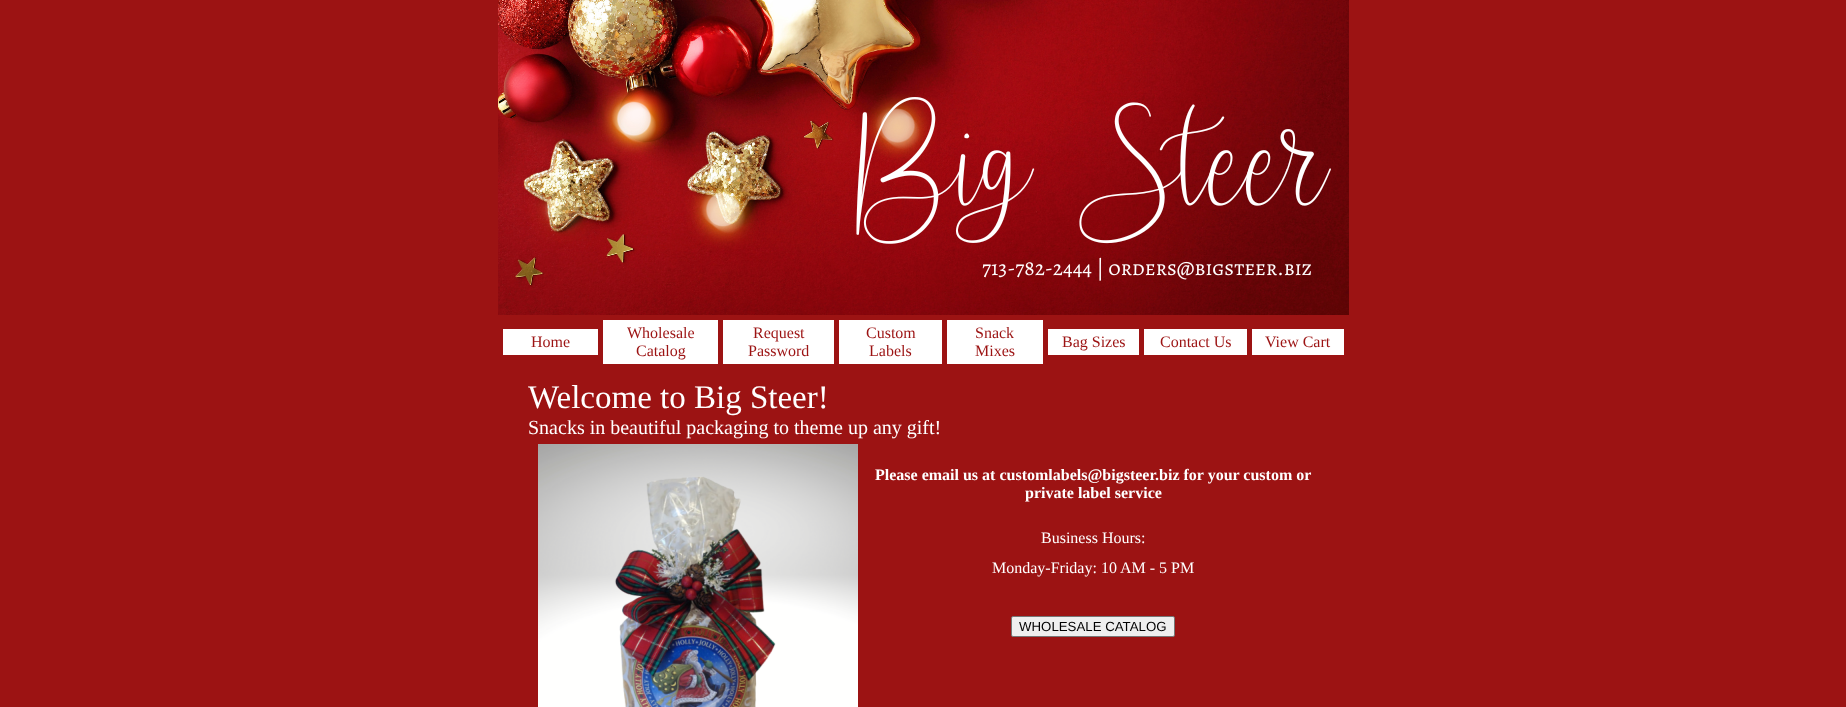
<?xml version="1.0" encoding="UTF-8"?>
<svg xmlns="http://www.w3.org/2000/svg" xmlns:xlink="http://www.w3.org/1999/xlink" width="1846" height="707">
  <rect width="100%" height="100%" fill="#9c1313" />
  <image x="498" y="0" width="851" height="315" xlink:href="image1.png" />
  <rect x="503" y="329" width="95" height="26" fill="#ffffff" />
  <rect x="603" y="320" width="115" height="44" fill="#ffffff" />
  <rect x="723" y="320" width="111" height="44" fill="#ffffff" />
  <rect x="839" y="320" width="103" height="44" fill="#ffffff" />
  <rect x="947" y="320" width="96" height="44" fill="#ffffff" />
  <rect x="1048" y="329" width="91" height="26" fill="#ffffff" />
  <rect x="1144" y="329" width="103" height="26" fill="#ffffff" />
  <rect x="1252" y="329" width="92" height="26" fill="#ffffff" />
  <image x="538" y="444" width="320" height="263" xlink:href="image2.png" />
  <rect x="1011.5" y="616.5" width="163" height="20" rx="1.5" fill="#efefef" stroke="#767676" />
  <text x="531" y="347" style="font-family: Liberation Serif; font-size: 16px; fill: #9c1313">Home</text>
  <text x="627" y="338" style="font-family: Liberation Serif; font-size: 16px; fill: #9c1313">Wholesale</text>
  <text x="636" y="356" style="font-family: Liberation Serif; font-size: 16px; fill: #9c1313">Catalog</text>
  <text x="753" y="338" style="font-family: Liberation Serif; font-size: 16px; fill: #9c1313">Request</text>
  <text x="748" y="356" style="font-family: Liberation Serif; font-size: 16px; fill: #9c1313">Password</text>
  <text x="866" y="338" style="font-family: Liberation Serif; font-size: 16px; fill: #9c1313">Custom</text>
  <text x="869" y="356" style="font-family: Liberation Serif; font-size: 16px; fill: #9c1313">Labels</text>
  <text x="975" y="338" style="font-family: Liberation Serif; font-size: 16px; fill: #9c1313">Snack</text>
  <text x="975" y="356" style="font-family: Liberation Serif; font-size: 16px; fill: #9c1313">Mixes</text>
  <text x="1062" y="347" style="font-family: Liberation Serif; font-size: 16px; fill: #9c1313">Bag Sizes</text>
  <text x="1160" y="347" style="font-family: Liberation Serif; font-size: 16px; fill: #9c1313">Contact Us</text>
  <text x="1265" y="347" style="font-family: Liberation Serif; font-size: 16px; fill: #9c1313">View Cart</text>
  <text x="528" y="408" style="font-family: Liberation Serif; font-size: 33px; fill: #ffffff">Welcome to Big Steer!</text>
  <text x="528" y="434" style="font-family: Liberation Serif; font-size: 20px; fill: #ffffff">Snacks in beautiful packaging to theme up any gift!</text>
  <text x="875" y="480" style="font-family: Liberation Serif; font-size: 16px; font-weight: bold; fill: #ffffff">Please email us at customlabels@bigsteer.biz for your custom or</text>
  <text x="1025" y="498" style="font-family: Liberation Serif; font-size: 16px; font-weight: bold; fill: #ffffff">private label service</text>
  <text x="1041" y="543" style="font-family: Liberation Serif; font-size: 16px; fill: #ffffff">Business Hours:</text>
  <text x="992" y="573" style="font-family: Liberation Serif; font-size: 16px; fill: #ffffff">Monday-Friday: 10 AM - 5 PM</text>
  <text x="1019" y="631" style="font-family: Liberation Sans; font-size: 13.25px; fill: #000000">WHOLESALE CATALOG</text>
</svg>
